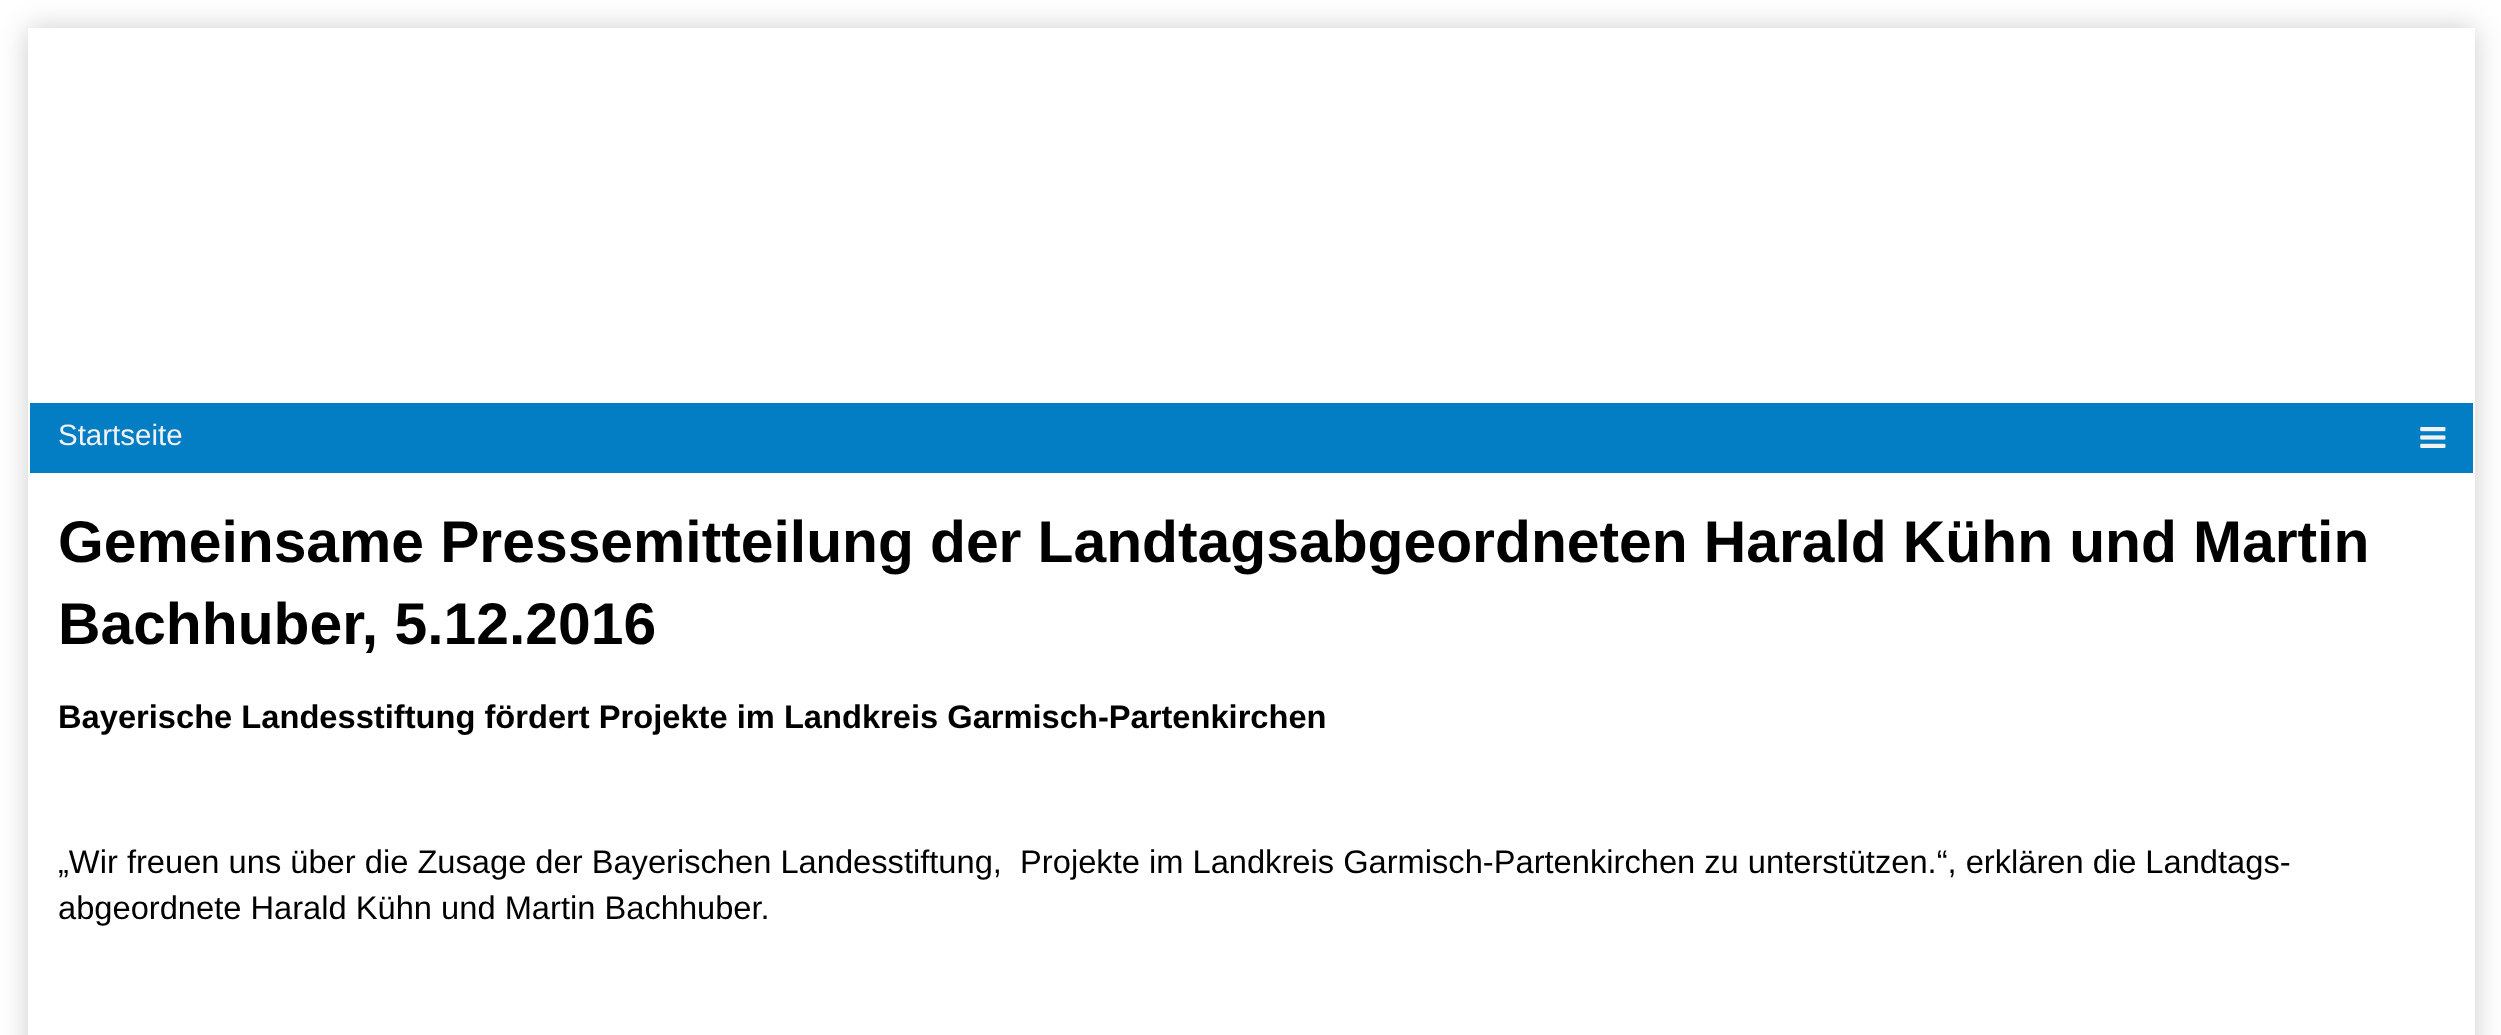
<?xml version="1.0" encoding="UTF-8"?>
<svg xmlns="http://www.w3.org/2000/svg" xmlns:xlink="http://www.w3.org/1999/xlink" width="2501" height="1035">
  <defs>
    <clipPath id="clip1"><path d="M 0 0 h 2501 v 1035 h -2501 z m 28 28 h 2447 v 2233 h -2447 z" clip-rule="evenodd" /></clipPath>
  </defs>
  <rect width="100%" height="100%" fill="#ffffff" />
  <g clip-path="url(#clip1)">
    <rect x="28" y="28" width="2447" height="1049" fill="#000000" fill-opacity="0.2" filter="blur(14px)" />
  </g>
  <rect x="2474" y="28" width="1" height="1007" fill="#ffffff" fill-opacity="0.8" />
  <rect x="30" y="403" width="2443" height="70" fill="#037dc4" />
  <image x="2420" y="427" width="26" height="21" xlink:href="image1.png" />
  <text x="58" y="445" style="font-family: Liberation Sans; font-size: 29.5px; fill: #f2f2f2">Startseite</text>
  <text x="58" y="562" word-spacing="-0.25" style="font-family: Liberation Sans; font-size: 58.8px; font-weight: bold; fill: #000000">Gemeinsame Pressemitteilung der Landtagsabgeordneten Harald Kühn und Martin</text>
  <text x="58" y="644" style="font-family: Liberation Sans; font-size: 58.8px; font-weight: bold; fill: #000000">Bachhuber, 5.12.2016</text>
  <text x="58" y="728" style="font-family: Liberation Sans; font-size: 32.67px; font-weight: bold; fill: #000000">Bayerische Landesstiftung fördert Projekte im Landkreis Garmisch-Partenkirchen</text>
  <text x="58" y="873" style="font-family: Liberation Sans; font-size: 32.67px; fill: #000000" xml:space="preserve">„Wir freuen uns über die Zusage der Bayerischen Landesstiftung,  Projekte im Landkreis Garmisch-Partenkirchen zu unterstützen.“, erklären die Landtags-</text>
  <text x="58" y="919" style="font-family: Liberation Sans; font-size: 32.67px; fill: #000000">abgeordnete Harald Kühn und Martin Bachhuber.</text>
</svg>
